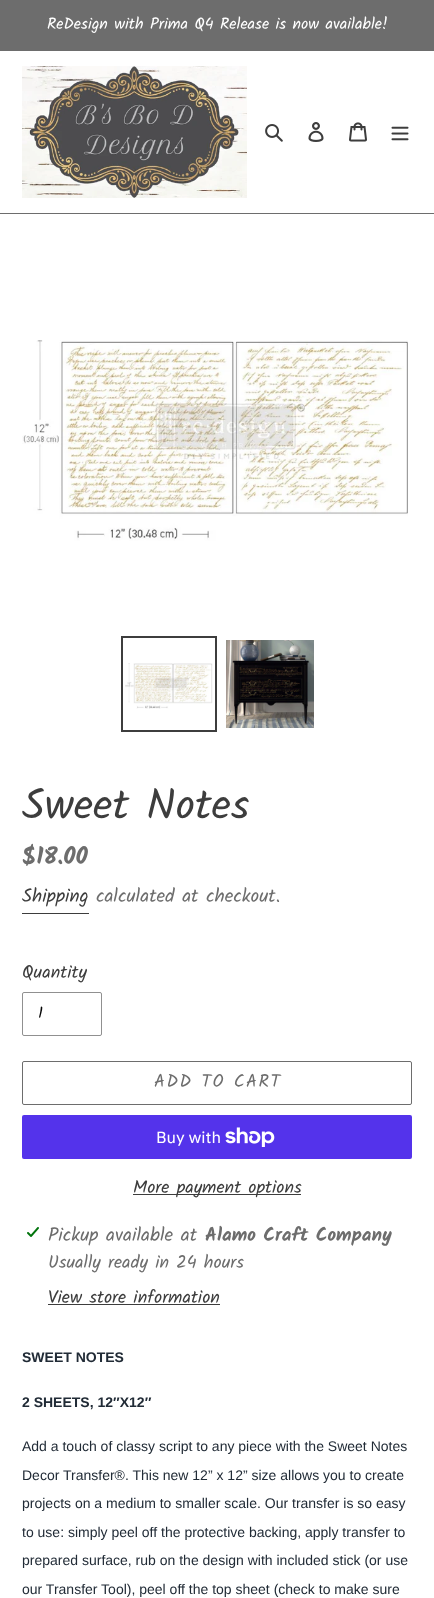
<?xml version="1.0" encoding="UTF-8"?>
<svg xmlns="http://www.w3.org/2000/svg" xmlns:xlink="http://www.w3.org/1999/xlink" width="434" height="1598">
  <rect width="100%" height="100%" fill="#ffffff" />
  <rect width="434" height="51" fill="#6d6d6d" />
  <rect y="213" width="434" height="1" fill="#6d6d6d" />
  <image x="22" y="66" width="225" height="132" xlink:href="image1.png" />
  <image x="265" y="124" width="18" height="18" xlink:href="image2.png" />
  <image x="308" y="122" width="16" height="20" xlink:href="image3.png" />
  <image x="349" y="122" width="18" height="20" xlink:href="image4.png" />
  <image x="391" y="126" width="18" height="15" xlink:href="image5.png" />
  <image x="22" y="340" width="386" height="201" xlink:href="image6.png" />
  <rect x="122" y="637" width="94" height="94" fill="none" stroke="#3d3d3d" stroke-width="2" />
  <image x="125" y="663" width="88" height="46" xlink:href="image7.png" />
  <image x="226" y="640" width="88" height="88" xlink:href="image8.png" />
  <rect x="22" y="913" width="67" height="1" fill="#3d3d3d" />
  <rect x="22.5" y="992.5" width="79" height="43" rx="1.5" fill="none" stroke="#909090" />
  <rect x="22.5" y="1061.5" width="389" height="43" rx="1.5" fill="none" stroke="#6d6d6d" />
  <rect x="22" y="1115" width="390" height="44" rx="2" fill="#5433eb" />
  <image x="225" y="1127" width="50" height="20" xlink:href="image9.png" />
  <rect x="133" y="1194" width="168" height="1" fill="#3d3d3d" />
  <image x="27" y="1227" width="12" height="10" xlink:href="image10.png" />
  <rect x="48" y="1304" width="172" height="1" fill="#3d3d3d" />
  <text x="47" y="29" style="font-family: Kalam; font-size: 16px; fill: #ffffff">ReDesign with Prima Q4 Release is now available!</text>
  <text x="22" y="819" style="font-family: Kalam; font-size: 43px; fill: #3d3d3d">Sweet Notes</text>
  <text x="22" y="864" style="font-family: Kalam; font-size: 24px; font-weight: bold; fill: #6d6d6d">$18.00</text>
  <text x="22" y="902" style="font-family: Kalam; font-size: 19px; fill: #3d3d3d">Shipping</text>
  <text x="96" y="902" style="font-family: Kalam; font-size: 19px; fill: #6d6d6d">calculated at checkout.</text>
  <text x="22" y="978" style="font-family: Kalam; font-size: 18px; fill: #3d3d3d">Quantity</text>
  <text x="38" y="1018" style="font-family: Kalam; font-size: 16px; fill: #060606">1</text>
  <text x="154" y="1087" style="font-family: Kalam; font-size: 18px; letter-spacing: 1.5px; fill: #6d6d6d">ADD TO CART</text>
  <text x="156" y="1143" style="font-family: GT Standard; font-size: 16px; fill: #ffffff">Buy with</text>
  <text x="133" y="1193" style="font-family: Kalam; font-size: 18px; fill: #3d3d3d">More payment options</text>
  <text x="48" y="1241" style="font-family: Kalam; font-size: 19px; fill: #6d6d6d">Pickup available at</text>
  <text x="205" y="1241" style="font-family: Kalam; font-size: 19px; font-weight: bold; fill: #6d6d6d">Alamo Craft Company</text>
  <text x="48" y="1268" style="font-family: Kalam; font-size: 18px; fill: #6d6d6d">Usually ready in 24 hours</text>
  <text x="48" y="1303" style="font-family: Kalam; font-size: 18px; fill: #3d3d3d">View store information</text>
  <text x="22" y="1362" style="font-family: Liberation Sans; font-size: 14px; font-weight: bold; fill: #212b36">SWEET NOTES</text>
  <text x="22" y="1407" style="font-family: Liberation Sans; font-size: 14px; font-weight: bold; fill: #212b36">2 SHEETS, 12″X12″</text>
  <text x="22" y="1451" style="font-family: Liberation Sans; font-size: 14px; fill: #212b36">Add a touch of classy script to any piece with the Sweet Notes</text>
  <text x="22" y="1480" style="font-family: Liberation Sans; font-size: 14px; fill: #212b36">Decor Transfer®. This new 12” x 12” size allows you to create</text>
  <text x="22" y="1508" style="font-family: Liberation Sans; font-size: 14px; fill: #212b36">projects on a medium to smaller scale. Our transfer is so easy</text>
  <text x="22" y="1537" style="font-family: Liberation Sans; font-size: 14px; fill: #212b36">to use: simply peel off the protective backing, apply transfer to</text>
  <text x="22" y="1565" style="font-family: Liberation Sans; font-size: 14px; fill: #212b36">prepared surface, rub on the design with included stick (or use</text>
  <text x="22" y="1594" style="font-family: Liberation Sans; font-size: 14px; fill: #212b36">our Transfer Tool), peel off the top sheet (check to make sure</text>
</svg>
